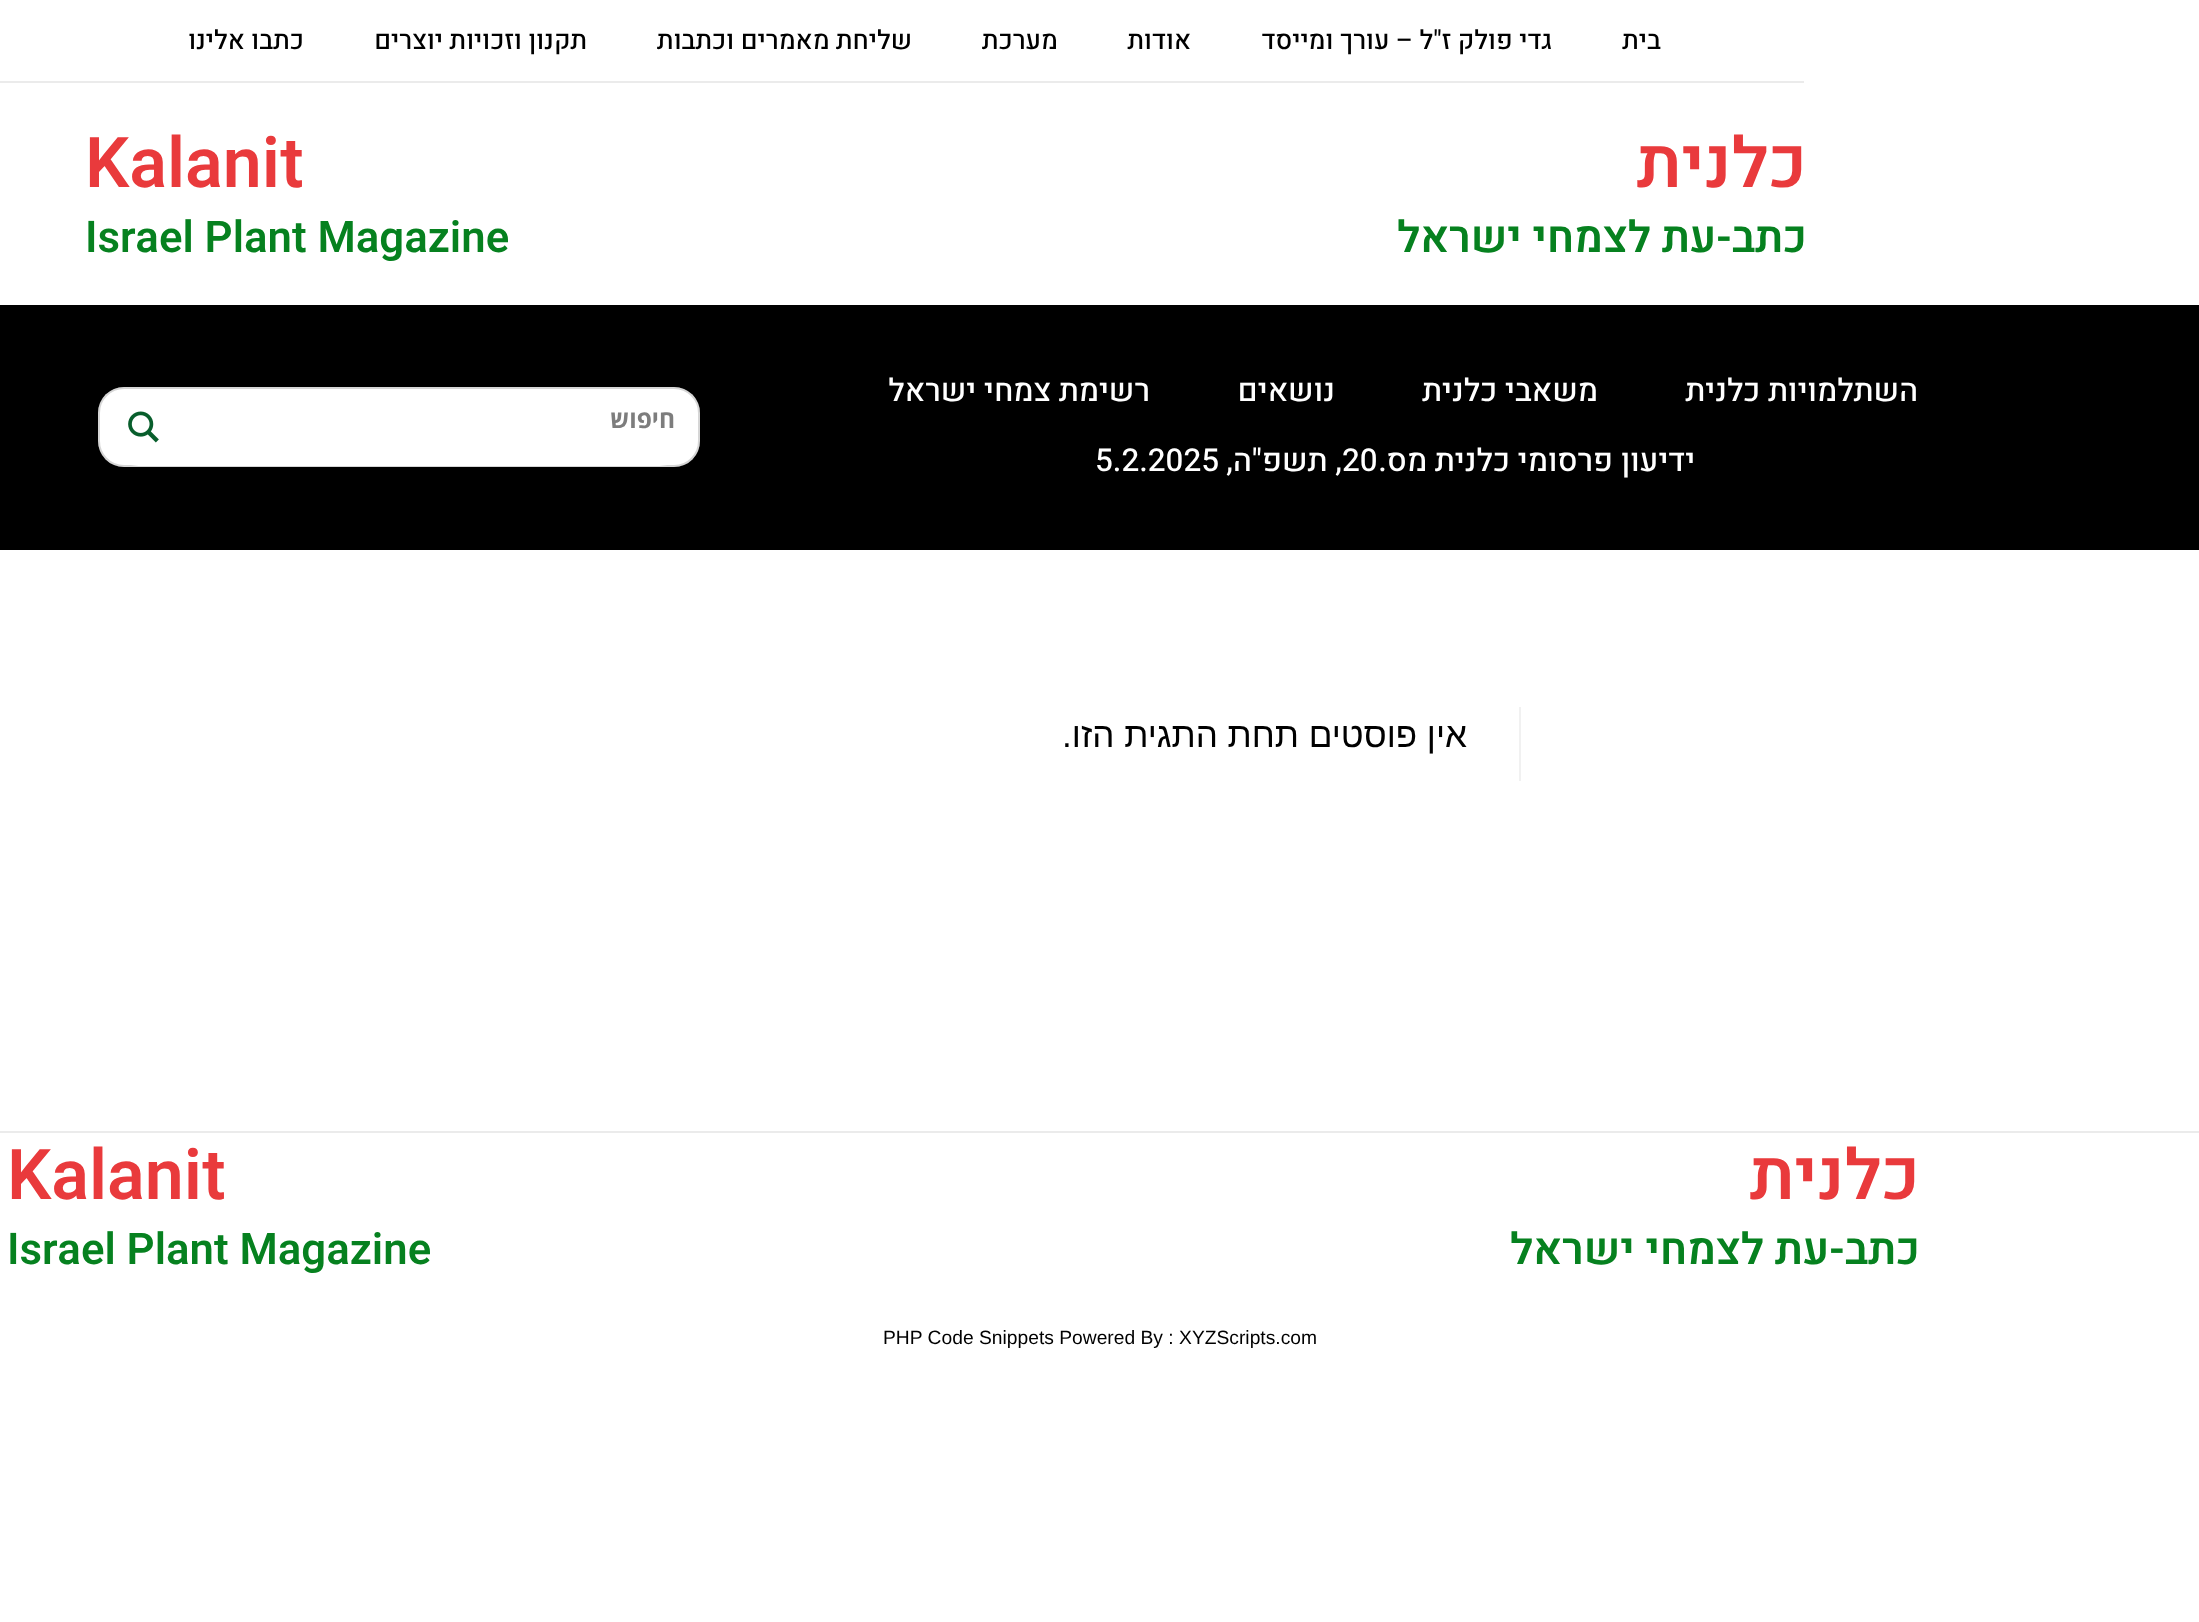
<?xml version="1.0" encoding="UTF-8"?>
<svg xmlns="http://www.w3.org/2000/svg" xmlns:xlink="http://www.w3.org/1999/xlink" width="2199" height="1622">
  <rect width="100%" height="100%" fill="#ffffff" />
  <rect y="81" width="1804" height="2" fill="#ebebeb" />
  <rect y="305" width="2199" height="245" fill="#000000" />
  <rect x="98" y="387" width="602" height="80" rx="26" fill="#ffffff" />
  <rect x="99" y="388" width="600" height="78" rx="25" fill="none" stroke="#7a7a7a" stroke-opacity="0.31" stroke-width="2" />
  <rect x="100" y="389" width="598" height="77" rx="38.5" fill="#ffffff" />
  <image x="128" y="411" width="31" height="32" xlink:href="image1.png" />
  <rect x="1519" y="707" width="2" height="74" fill="#f1f1f1" />
  <rect y="1131" width="2199" height="2" fill="#ebebeb" />
  <text x="1661" y="49" style="font-family: Heebo; font-size: 26.25px; font-weight: 500; direction: rtl; fill: #000000">בית</text>
  <text x="1552" y="49" style="font-family: Heebo; font-size: 26.25px; font-weight: 500; direction: rtl; fill: #000000">גדי פולק ז"ל – עורך ומייסד</text>
  <text x="1191" y="49" style="font-family: Heebo; font-size: 26.25px; font-weight: 500; direction: rtl; fill: #000000">אודות</text>
  <text x="1058" y="49" style="font-family: Heebo; font-size: 26.25px; font-weight: 500; direction: rtl; fill: #000000">מערכת</text>
  <text x="912" y="49" style="font-family: Heebo; font-size: 26.25px; font-weight: 500; direction: rtl; fill: #000000">שליחת מאמרים וכתבות</text>
  <text x="587" y="49" style="font-family: Heebo; font-size: 26.25px; font-weight: 500; direction: rtl; fill: #000000">תקנון וזכויות יוצרים</text>
  <text x="304" y="49" style="font-family: Heebo; font-size: 26.25px; font-weight: 500; direction: rtl; fill: #000000">כתבו אלינו</text>
  <text x="1807" y="187" style="font-family: Heebo; font-size: 70px; font-weight: 600; direction: rtl; fill: #e93a3c">כלנית</text>
  <text x="1807" y="252" style="font-family: Heebo; font-size: 43.75px; font-weight: 600; direction: rtl; fill: #06811f">כתב-עת לצמחי ישראל</text>
  <text x="85" y="187" style="font-family: Heebo; font-size: 70px; font-weight: 600; fill: #e93a3c">Kalanit</text>
  <text x="85" y="252" style="font-family: Heebo; font-size: 43.75px; font-weight: 600; fill: #06811f">Israel Plant Magazine</text>
  <text x="1918" y="401" style="font-family: Heebo; font-size: 31.5px; font-weight: 500; direction: rtl; fill: #ffffff">השתלמויות כלנית</text>
  <text x="1598" y="401" style="font-family: Heebo; font-size: 31.5px; font-weight: 500; direction: rtl; fill: #ffffff">משאבי כלנית</text>
  <text x="1335" y="401" style="font-family: Heebo; font-size: 31.5px; font-weight: 500; direction: rtl; fill: #ffffff">נושאים</text>
  <text x="1150" y="401" style="font-family: Heebo; font-size: 31.5px; font-weight: 500; direction: rtl; fill: #ffffff">רשימת צמחי ישראל</text>
  <text x="1695" y="471" style="font-family: Heebo; font-size: 31.5px; font-weight: 500; direction: rtl; fill: #ffffff">ידיעון פרסומי כלנית מס.</text>
  <text x="1342" y="471" style="font-family: Heebo; font-size: 31.5px; font-weight: 500; fill: #ffffff">20</text>
  <text x="1342" y="471" style="font-family: Heebo; font-size: 31.5px; font-weight: 500; direction: rtl; fill: #ffffff">, תשפ"ה,</text>
  <text x="1095" y="471" style="font-family: Heebo; font-size: 31.5px; font-weight: 500; fill: #ffffff">5.2.2025</text>
  <text x="675" y="428" style="font-family: Open Sans; font-size: 24.5px; font-weight: bold; direction: rtl; fill: #7d7d7d">חיפוש</text>
  <text x="1467" y="747" style="font-family: Liberation Sans; font-size: 35px; direction: rtl; fill: #000000">אין פוסטים תחת התגית הזו.</text>
  <text x="1920" y="1199" style="font-family: Heebo; font-size: 70px; font-weight: 600; direction: rtl; fill: #e93a3c">כלנית</text>
  <text x="1920" y="1264" style="font-family: Heebo; font-size: 43.75px; font-weight: 600; direction: rtl; fill: #06811f">כתב-עת לצמחי ישראל</text>
  <text x="7" y="1199" style="font-family: Heebo; font-size: 70px; font-weight: 600; fill: #e93a3c">Kalanit</text>
  <text x="7" y="1264" style="font-family: Heebo; font-size: 43.75px; font-weight: 600; fill: #06811f">Israel Plant Magazine</text>
  <text x="883" y="1344" style="font-family: Liberation Sans; font-size: 19.25px; fill: #000000">PHP Code Snippets Powered By : XYZScripts.com</text>
</svg>
